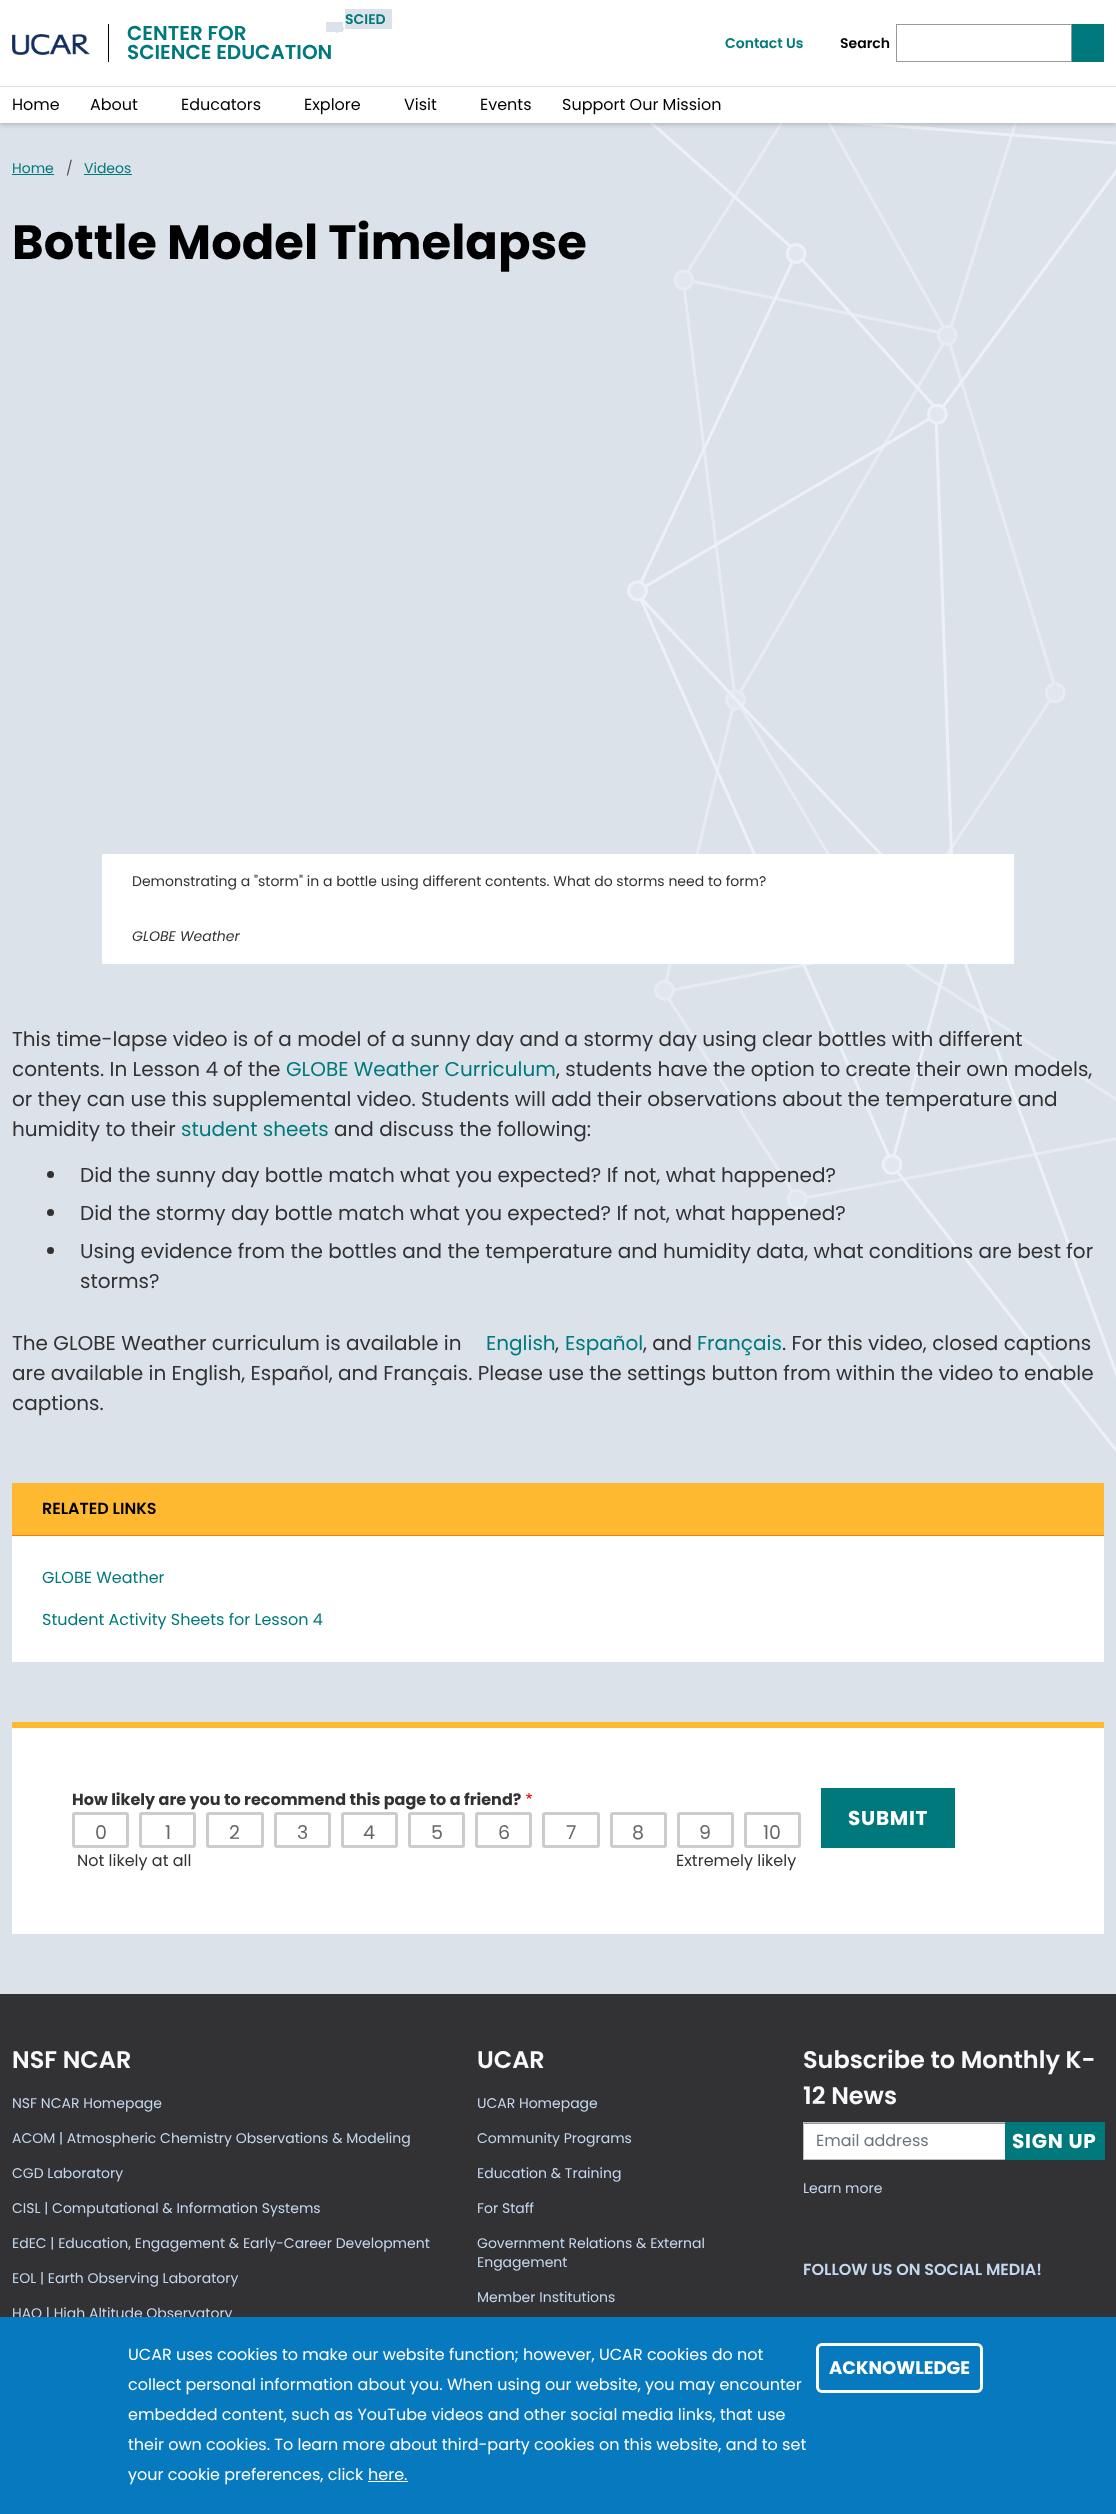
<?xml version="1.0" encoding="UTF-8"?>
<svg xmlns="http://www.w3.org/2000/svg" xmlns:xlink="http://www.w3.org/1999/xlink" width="1116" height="2514">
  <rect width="100%" height="100%" fill="#dbe2e9" />
  <image x="627" y="123" width="489" height="1329" xlink:href="image1.png" />
  <rect y="2" width="1116" height="123" fill="#000000" fill-opacity="0.18" filter="blur(2px)" />
  <rect width="1116" height="123" fill="#ffffff" />
  <rect x="326" y="22" width="17" height="10" fill="#dbe2e9" />
  <rect x="345" y="9" width="47" height="20" fill="#dbe2e9" />
  <path d="M 340 20.5 l 4.5 9 l -9 4 z" fill="#dbe2e9" />
  <image x="12" y="34" width="78" height="21" xlink:href="image2.png" />
  <rect x="108" y="24" width="1" height="38" fill="#000000" />
  <rect x="896.5" y="24.5" width="175" height="37" fill="none" stroke="#97999b" />
  <rect x="1072" y="24" width="32" height="38" fill="#00797c" />
  <rect y="86" width="1116" height="1" fill="#dee2e6" />
  <rect x="12" y="174" width="42" height="1" fill="#00797c" />
  <rect x="84" y="174" width="48" height="1" fill="#00797c" />
  <rect x="102" y="854" width="912" height="110" fill="#ffffff" />
  <circle cx="50.5" cy="1174.5" r="3.5" fill="#323133" />
  <circle cx="50.5" cy="1212.5" r="3.5" fill="#323133" />
  <circle cx="50.5" cy="1250.5" r="3.5" fill="#323133" />
  <rect x="12" y="1536" width="1092" height="126" fill="#ffffff" />
  <rect x="12" y="1483" width="1092" height="52" fill="#ffb931" />
  <rect x="12" y="1535" width="1092" height="1" fill="#ff7a00" />
  <rect x="12" y="1728" width="1092" height="206" fill="#ffffff" />
  <rect x="12" y="1722" width="1092" height="6" fill="#ffb931" />
  <image x="526" y="1793" width="6" height="6" xlink:href="image3.png" />
  <rect x="73.5" y="1813.5" width="54" height="33" rx="1.5" fill="none" stroke="#cccccc" stroke-width="3" />
  <rect x="140.5" y="1813.5" width="54" height="33" rx="1.5" fill="none" stroke="#cccccc" stroke-width="3" />
  <rect x="207.5" y="1813.5" width="55" height="33" rx="1.5" fill="none" stroke="#cccccc" stroke-width="3" />
  <rect x="275.5" y="1813.5" width="54" height="33" rx="1.5" fill="none" stroke="#cccccc" stroke-width="3" />
  <rect x="342.5" y="1813.5" width="54" height="33" rx="1.5" fill="none" stroke="#cccccc" stroke-width="3" />
  <rect x="409.5" y="1813.5" width="54" height="33" rx="1.5" fill="none" stroke="#cccccc" stroke-width="3" />
  <rect x="476.5" y="1813.5" width="54" height="33" rx="1.5" fill="none" stroke="#cccccc" stroke-width="3" />
  <rect x="543.5" y="1813.5" width="55" height="33" rx="1.5" fill="none" stroke="#cccccc" stroke-width="3" />
  <rect x="611.5" y="1813.5" width="54" height="33" rx="1.5" fill="none" stroke="#cccccc" stroke-width="3" />
  <rect x="678.5" y="1813.5" width="54" height="33" rx="1.5" fill="none" stroke="#cccccc" stroke-width="3" />
  <rect x="745.5" y="1813.5" width="54" height="33" rx="1.5" fill="none" stroke="#cccccc" stroke-width="3" />
  <rect x="821" y="1788" width="134" height="60" fill="#00797c" />
  <rect y="1994" width="1116" height="323" fill="#323133" />
  <rect x="804" y="2124" width="201" height="35" fill="#ffffff" />
  <rect x="804" y="2123" width="201" height="1" fill="#97999b" />
  <rect x="803.5" y="2122.5" width="202" height="37" fill="none" stroke="#bbbcbc" />
  <rect x="1005" y="2122" width="100" height="38" fill="#00797c" />
  <text x="345" y="24" style="font-family: Poppins; font-size: 14px; font-weight: 600; fill: #00797c">SCIED</text>
  <text x="127" y="40" style="font-family: Poppins; font-size: 20px; font-weight: 600; fill: #00797c">CENTER FOR</text>
  <text x="127" y="59" style="font-family: Poppins; font-size: 20px; font-weight: 600; fill: #00797c">SCIENCE EDUCATION</text>
  <text x="725" y="48" style="font-family: Poppins; font-size: 14px; font-weight: 600; fill: #00797c">Contact Us</text>
  <text x="840" y="48" style="font-family: Poppins; font-size: 14px; font-weight: 600; fill: #000000">Search</text>
  <text x="12" y="110" style="font-family: Poppins; font-size: 16px; fill: #000000">Home</text>
  <text x="90" y="110" style="font-family: Poppins; font-size: 16px; fill: #000000">About</text>
  <text x="181" y="110" style="font-family: Poppins; font-size: 16px; fill: #000000">Educators</text>
  <text x="304" y="110" style="font-family: Poppins; font-size: 16px; fill: #000000">Explore</text>
  <text x="404" y="110" style="font-family: Poppins; font-size: 16px; fill: #000000">Visit</text>
  <text x="480" y="110" style="font-family: Poppins; font-size: 16px; fill: #000000">Events</text>
  <text x="562" y="110" style="font-family: Poppins; font-size: 16px; fill: #000000">Support Our Mission</text>
  <text x="12" y="173" style="font-family: Poppins; font-size: 14px; fill: #00797c">Home</text>
  <text x="66" y="173" style="font-family: Poppins; font-size: 14px; fill: #53565a">/</text>
  <text x="84" y="173" style="font-family: Poppins; font-size: 14px; fill: #00797c">Videos</text>
  <text x="12" y="259" style="font-family: Poppins; font-size: 48px; font-weight: bold; fill: #000000">Bottle Model Timelapse</text>
  <text x="132" y="886" style="font-family: Poppins; font-size: 14px; fill: #323133">Demonstrating a "storm" in a bottle using different contents. What do storms need to form?</text>
  <text x="132" y="941" style="font-family: Poppins; font-size: 14px; font-style: italic; fill: #323133">GLOBE Weather</text>
  <text x="12" y="1046" style="font-family: Poppins; font-size: 20px; fill: #323133">This time-lapse video is of a model of a sunny day and a stormy day using clear bottles with different</text>
  <text x="12" y="1076" style="font-family: Poppins; font-size: 20px; fill: #323133">contents. In Lesson 4 of the</text>
  <text x="286" y="1076" style="font-family: Poppins; font-size: 20px; fill: #00797c">GLOBE Weather Curriculum</text>
  <text x="556" y="1076" style="font-family: Poppins; font-size: 20px; fill: #323133">, students have the option to create their own models,</text>
  <text x="12" y="1106" style="font-family: Poppins; font-size: 20px; fill: #323133">or they can use this supplemental video. Students will add their observations about the temperature and</text>
  <text x="12" y="1136" style="font-family: Poppins; font-size: 20px; fill: #323133">humidity to their</text>
  <text x="181" y="1136" style="font-family: Poppins; font-size: 20px; fill: #00797c">student sheets</text>
  <text x="334" y="1136" style="font-family: Poppins; font-size: 20px; fill: #323133">and discuss the following:</text>
  <text x="80" y="1182" style="font-family: Poppins; font-size: 20px; fill: #323133">Did the sunny day bottle match what you expected? If not, what happened?</text>
  <text x="80" y="1220" style="font-family: Poppins; font-size: 20px; fill: #323133">Did the stormy day bottle match what you expected? If not, what happened?</text>
  <text x="80" y="1258" style="font-family: Poppins; font-size: 20px; fill: #323133">Using evidence from the bottles and the temperature and humidity data, what conditions are best for</text>
  <text x="80" y="1288" style="font-family: Poppins; font-size: 20px; fill: #323133">storms?</text>
  <text x="12" y="1350" style="font-family: Poppins; font-size: 20px; fill: #323133">The GLOBE Weather curriculum is available in</text>
  <text x="486" y="1350" style="font-family: Poppins; font-size: 20px; fill: #00797c">English</text>
  <text x="555" y="1350" style="font-family: Poppins; font-size: 20px; fill: #323133">,</text>
  <text x="565" y="1350" style="font-family: Poppins; font-size: 20px; fill: #00797c">Español</text>
  <text x="643" y="1350" style="font-family: Poppins; font-size: 20px; fill: #323133">, and</text>
  <text x="697" y="1350" style="font-family: Poppins; font-size: 20px; fill: #00797c">Français</text>
  <text x="782" y="1350" style="font-family: Poppins; font-size: 20px; fill: #323133">. For this video, closed captions</text>
  <text x="12" y="1380" style="font-family: Poppins; font-size: 20px; fill: #323133">are available in English, Español, and Français. Please use the settings button from within the video to enable</text>
  <text x="12" y="1410" style="font-family: Poppins; font-size: 20px; fill: #323133">captions.</text>
  <text x="42" y="1514" style="font-family: Poppins; font-size: 16px; font-weight: 600; fill: #000000">RELATED LINKS</text>
  <text x="42" y="1583" style="font-family: Poppins; font-size: 16px; fill: #00797c">GLOBE Weather</text>
  <text x="42" y="1625" style="font-family: Poppins; font-size: 16px; fill: #00797c">Student Activity Sheets for Lesson 4</text>
  <text x="72" y="1805" style="font-family: Poppins; font-size: 16px; font-weight: bold; fill: #323133">How likely are you to recommend this page to a friend?</text>
  <text x="95" y="1839" style="font-family: Poppins; font-size: 19px; fill: #666666">0</text>
  <text x="165" y="1839" style="font-family: Poppins; font-size: 19px; fill: #666666">1</text>
  <text x="229" y="1839" style="font-family: Poppins; font-size: 19px; fill: #666666">2</text>
  <text x="297" y="1839" style="font-family: Poppins; font-size: 19px; fill: #666666">3</text>
  <text x="363" y="1839" style="font-family: Poppins; font-size: 19px; fill: #666666">4</text>
  <text x="431" y="1839" style="font-family: Poppins; font-size: 19px; fill: #666666">5</text>
  <text x="498" y="1839" style="font-family: Poppins; font-size: 19px; fill: #666666">6</text>
  <text x="566" y="1839" style="font-family: Poppins; font-size: 19px; fill: #666666">7</text>
  <text x="632" y="1839" style="font-family: Poppins; font-size: 19px; fill: #666666">8</text>
  <text x="699" y="1839" style="font-family: Poppins; font-size: 19px; fill: #666666">9</text>
  <text x="763" y="1839" style="font-family: Poppins; font-size: 19px; fill: #666666">10</text>
  <text x="77" y="1866" style="font-family: Poppins; font-size: 16px; fill: #323133">Not likely at all</text>
  <text x="676" y="1866" style="font-family: Poppins; font-size: 16px; fill: #323133">Extremely likely</text>
  <text x="848" y="1825" style="font-family: Poppins; font-size: 20px; font-weight: bold; letter-spacing: 0.75px; fill: #ffffff">SUBMIT</text>
  <text x="12" y="2068" style="font-family: Poppins; font-size: 24px; font-weight: 600; fill: #f8f9fa">NSF NCAR</text>
  <text x="12" y="2108" style="font-family: Poppins; font-size: 14px; fill: #c3d7ee">NSF NCAR Homepage</text>
  <text x="12" y="2143" style="font-family: Poppins; font-size: 14px; fill: #c3d7ee">ACOM | Atmospheric Chemistry Observations &amp; Modeling</text>
  <text x="12" y="2178" style="font-family: Poppins; font-size: 14px; fill: #c3d7ee">CGD Laboratory</text>
  <text x="12" y="2213" style="font-family: Poppins; font-size: 14px; fill: #c3d7ee">CISL | Computational &amp; Information Systems</text>
  <text x="12" y="2248" style="font-family: Poppins; font-size: 14px; fill: #c3d7ee">EdEC | Education, Engagement &amp; Early-Career Development</text>
  <text x="12" y="2283" style="font-family: Poppins; font-size: 14px; fill: #c3d7ee">EOL | Earth Observing Laboratory</text>
  <text x="12" y="2318" style="font-family: Poppins; font-size: 14px; fill: #c3d7ee">HAO | High Altitude Observatory</text>
  <text x="477" y="2068" style="font-family: Poppins; font-size: 24px; font-weight: 600; fill: #f8f9fa">UCAR</text>
  <text x="477" y="2108" style="font-family: Poppins; font-size: 14px; fill: #c3d7ee">UCAR Homepage</text>
  <text x="477" y="2143" style="font-family: Poppins; font-size: 14px; fill: #c3d7ee">Community Programs</text>
  <text x="477" y="2178" style="font-family: Poppins; font-size: 14px; fill: #c3d7ee">Education &amp; Training</text>
  <text x="477" y="2213" style="font-family: Poppins; font-size: 14px; fill: #c3d7ee">For Staff</text>
  <text x="477" y="2248" style="font-family: Poppins; font-size: 14px; fill: #c3d7ee">Government Relations &amp; External</text>
  <text x="477" y="2267" style="font-family: Poppins; font-size: 14px; fill: #c3d7ee">Engagement</text>
  <text x="477" y="2302" style="font-family: Poppins; font-size: 14px; fill: #c3d7ee">Member Institutions</text>
  <text x="803" y="2068" style="font-family: Poppins; font-size: 24px; font-weight: 600; fill: #f8f9fa">Subscribe to Monthly K-</text>
  <text x="803" y="2104" style="font-family: Poppins; font-size: 24px; font-weight: 600; fill: #f8f9fa">12 News</text>
  <text x="816" y="2146" style="font-family: Poppins; font-size: 16px; fill: #6c757d">Email address</text>
  <text x="1012" y="2148" style="font-family: Poppins; font-size: 20px; font-weight: bold; letter-spacing: 0.75px; fill: #ffffff">SIGN UP</text>
  <text x="803" y="2193" style="font-family: Poppins; font-size: 14px; fill: #c3d7ee">Learn more</text>
  <text x="803" y="2275" style="font-family: Poppins; font-size: 16px; font-weight: 600; fill: #c3d7ee">FOLLOW US ON SOCIAL MEDIA!</text>
  <rect y="2317" width="1116" height="197" fill="#0779bf" />
  <text x="128" y="2360" style="font-family: Poppins; font-size: 16px; fill: #ffffff">UCAR uses cookies to make our website function; however, UCAR cookies do not</text>
  <text x="128" y="2390" style="font-family: Poppins; font-size: 16px; fill: #ffffff">collect personal information about you. When using our website, you may encounter</text>
  <text x="128" y="2420" style="font-family: Poppins; font-size: 16px; fill: #ffffff">embedded content, such as YouTube videos and other social media links, that use</text>
  <text x="128" y="2450" style="font-family: Poppins; font-size: 16px; fill: #ffffff">their own cookies. To learn more about third-party cookies on this website, and to set</text>
  <text x="128" y="2480" style="font-family: Poppins; font-size: 16px; fill: #ffffff">your cookie preferences, click</text>
  <text x="368" y="2480" style="font-family: Poppins; font-size: 16px; fill: #ffffff">here.</text>
  <rect x="368" y="2481" width="40" height="1" fill="#ffffff" />
  <rect x="817.5" y="2344.5" width="164" height="47" rx="4.5" fill="none" stroke="#ffffff" stroke-width="3" />
  <text x="829" y="2374" style="font-family: Poppins; font-size: 18px; font-weight: bold; fill: #ffffff">ACKNOWLEDGE</text>
</svg>
